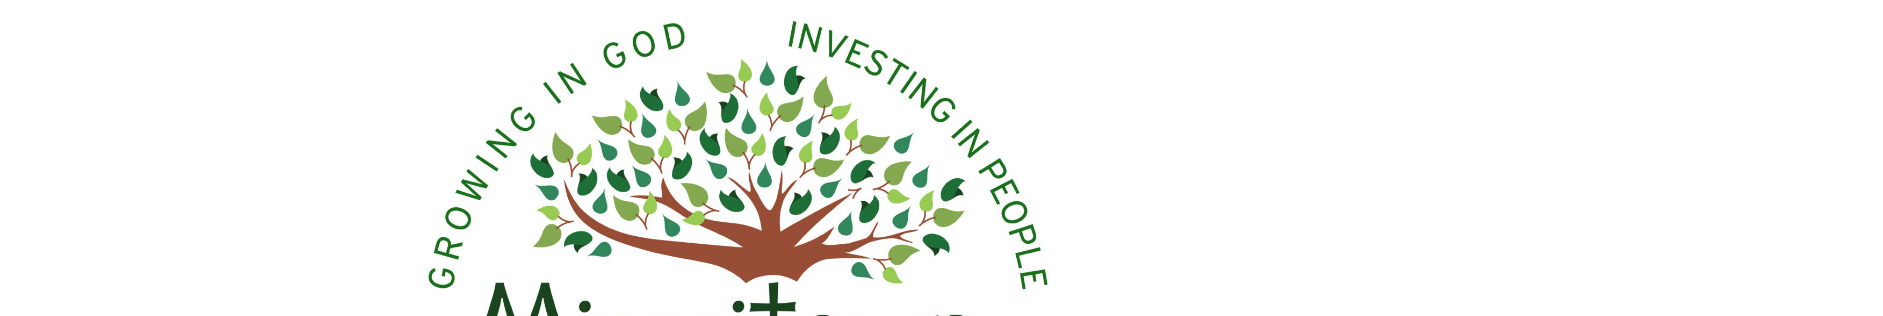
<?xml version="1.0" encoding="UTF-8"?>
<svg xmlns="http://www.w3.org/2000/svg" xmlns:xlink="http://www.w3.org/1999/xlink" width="1883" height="316">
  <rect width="100%" height="100%" fill="#ffffff" />
  <image x="426" y="19" width="623" height="297" xlink:href="image1.png" />
</svg>
